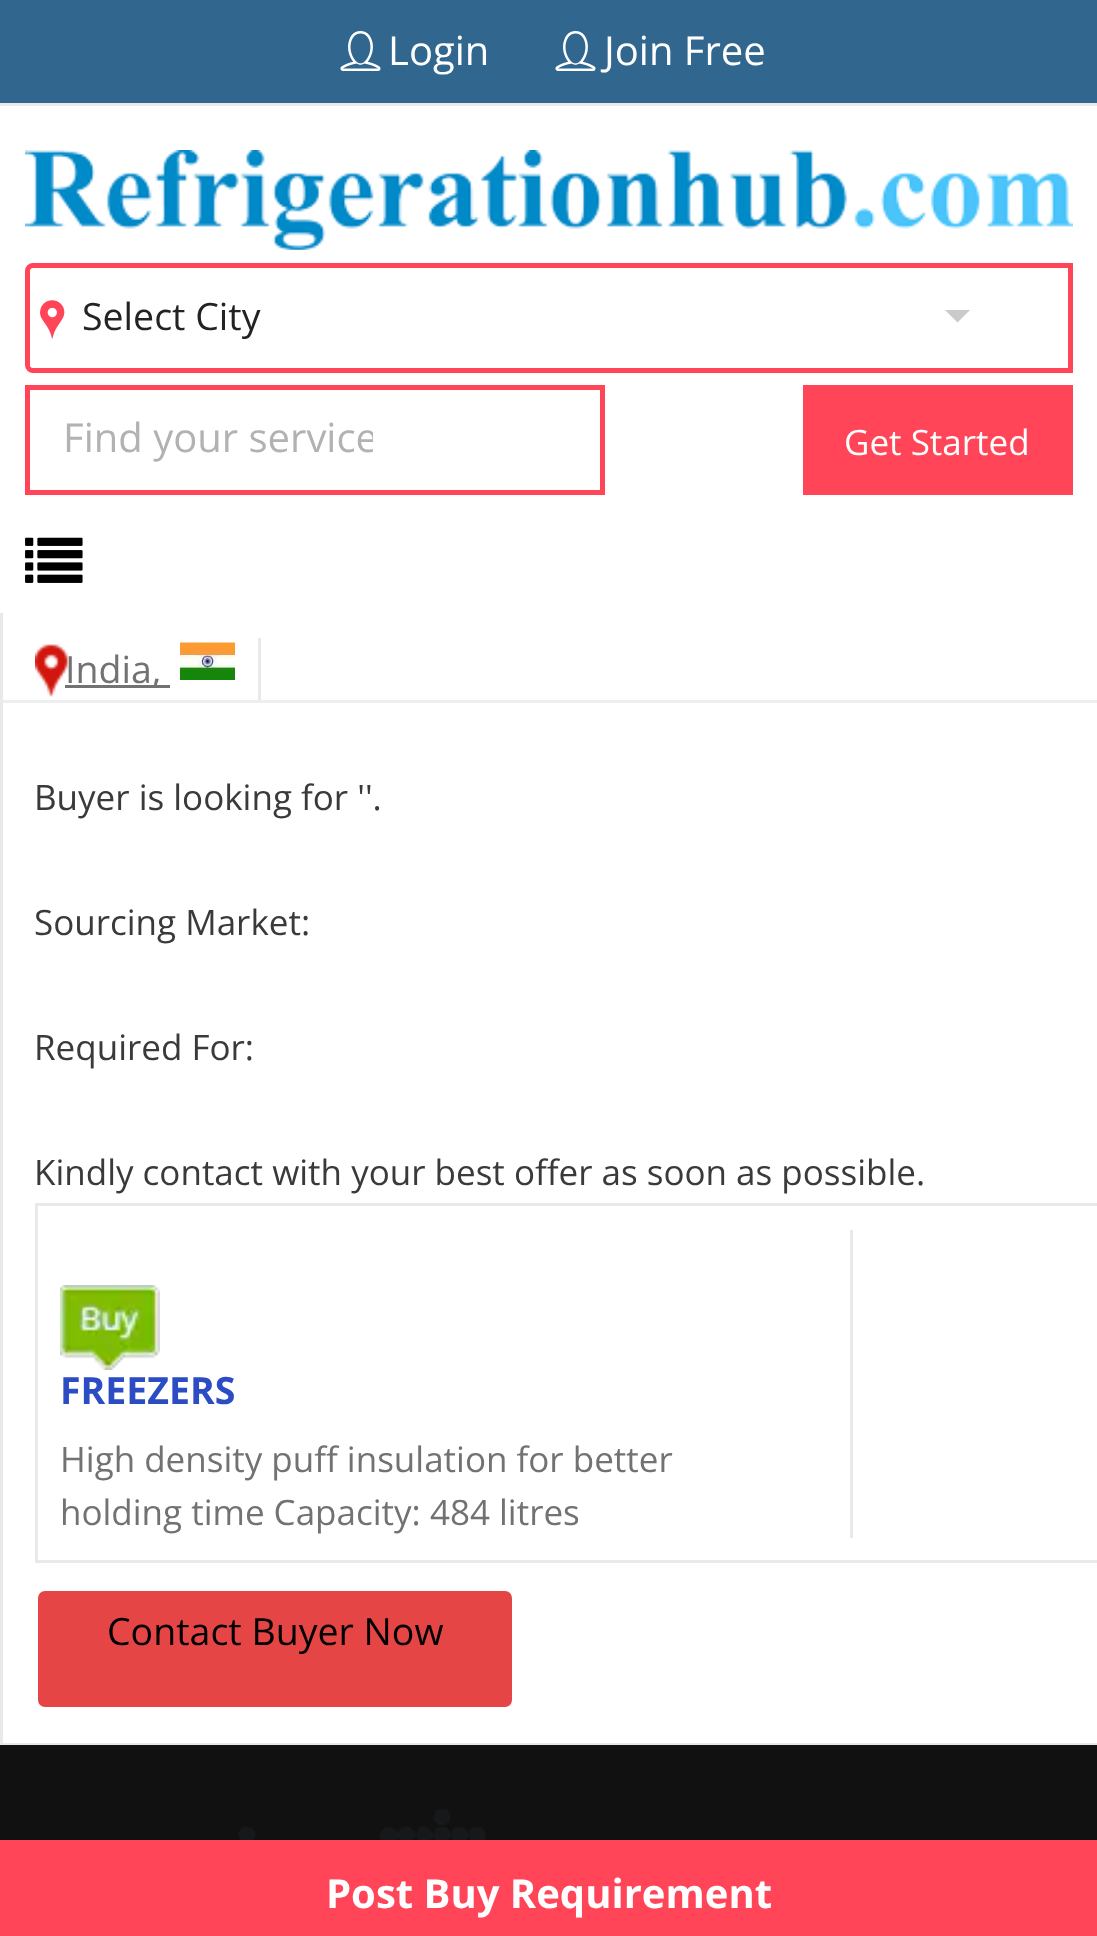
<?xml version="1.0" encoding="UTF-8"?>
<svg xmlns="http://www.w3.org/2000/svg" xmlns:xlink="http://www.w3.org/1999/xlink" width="1097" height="1936">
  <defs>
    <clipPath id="clip1"><rect x="63" y="410" width="310" height="55" /></clipPath>
  </defs>
  <rect width="100%" height="100%" fill="#111111" />
  <rect x="3" y="670" width="1094" height="30" fill="#ffffff" />
  <rect x="1.5" y="574.5" width="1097" height="1169" fill="none" stroke="#e9e9e9" stroke-width="3" />
  <rect y="106" width="1097" height="507" fill="#ffffff" />
  <rect width="1097" height="103" fill="#31668e" />
  <image x="340" y="31" width="41" height="40" xlink:href="image1.png" />
  <image x="555" y="31" width="41" height="40" xlink:href="image1.png" />
  <rect y="103" width="1097" height="3" fill="#eaeaea" />
  <image x="25" y="537" width="58" height="46" xlink:href="image2.png" />
  <image x="25" y="150" width="1048" height="100" xlink:href="image3.png" />
  <path d="M 33 265.5 h 1037.5 v 105 h -1037.5 c -3 0 -5.5 -2.5 -5.5 -5.5 v -94 c 0 -3 2.5 -5.5 5.5 -5.5 z" fill="none" stroke="#ff4557" stroke-width="5" />
  <image x="40" y="300" width="25" height="39" xlink:href="image4.png" />
  <path d="M 945 310 h 25 l -12.5 12.5 z" fill="#cacaca" />
  <rect x="27.5" y="387.5" width="575" height="105" fill="none" stroke="#ff4557" stroke-width="5" />
  <rect x="803" y="385" width="270" height="110" fill="#ff4557" />
  <rect y="1840" width="1097" height="96" fill="#ff4557" />
  <rect x="3" y="613" width="1094" height="57" fill="#ffffff" />
  <image x="35" y="644" width="34" height="53" xlink:href="image5.png" />
  <rect x="258" y="638" width="3" height="62" fill="#e9e9e9" />
  <rect x="65" y="685" width="105" height="3" fill="#727272" />
  <image x="180" y="642" width="55" height="38" xlink:href="image6.png" />
  <rect x="3" y="700" width="1094" height="3" fill="#eeeeee" />
  <rect x="3" y="703" width="1094" height="1040" fill="#ffffff" />
  <rect x="36.5" y="1204.5" width="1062" height="357" fill="none" stroke="#e9e9e9" stroke-width="3" />
  <rect x="850" y="1230" width="3" height="308" fill="#e9e9e9" />
  <image x="60" y="1285" width="100" height="85" xlink:href="image7.png" />
  <rect x="36.5" y="1589.5" width="477" height="119" rx="8.5" fill="#e64545" stroke="#ffffff" stroke-width="3" />
  <image x="238" y="1809" width="248" height="31" xlink:href="image8.png" />
  <text x="388" y="65" style="font-family: Open Sans; font-size: 40px; fill: #ffffff">Login</text>
  <text x="604" y="65" style="font-family: Open Sans; font-size: 40px; fill: #ffffff">Join Free</text>
  <text x="82" y="330" style="font-family: Open Sans; font-size: 37.5px; fill: #232323">Select City</text>
  <g clip-path="url(#clip1)">
    <text x="63" y="452" style="font-family: Open Sans; font-size: 40px; fill: #b2b2b2">Find your service</text>
  </g>
  <text x="844" y="455" style="font-family: Open Sans; font-size: 35px; fill: #ffffff">Get Started</text>
  <text x="326" y="1908" style="font-family: Open Sans; font-size: 40px; font-weight: bold; fill: #ffffff">Post Buy Requirement</text>
  <text x="65" y="683" style="font-family: Open Sans; font-size: 37.5px; fill: #727272">India,</text>
  <text x="34" y="810" style="font-family: Open Sans; font-size: 35px; fill: #3a3a3a">Buyer is looking for ''.</text>
  <text x="34" y="935" style="font-family: Open Sans; font-size: 35px; fill: #3a3a3a">Sourcing Market:</text>
  <text x="34" y="1060" style="font-family: Open Sans; font-size: 35px; fill: #3a3a3a">Required For:</text>
  <text x="34" y="1185" style="font-family: Open Sans; font-size: 35px; fill: #3a3a3a">Kindly contact with your best offer as soon as possible.</text>
  <text x="60" y="1404" style="font-family: Open Sans; font-size: 37.5px; font-weight: bold; fill: #2c4cc4">FREEZERS</text>
  <text x="60" y="1472" style="font-family: Open Sans; font-size: 35px; fill: #727272">High density puff insulation for better</text>
  <text x="60" y="1525" style="font-family: Open Sans; font-size: 35px; fill: #727272">holding time Capacity: 484 litres</text>
  <text x="107" y="1645" style="font-family: Open Sans; font-size: 37.5px; fill: #000000">Contact Buyer Now</text>
</svg>
